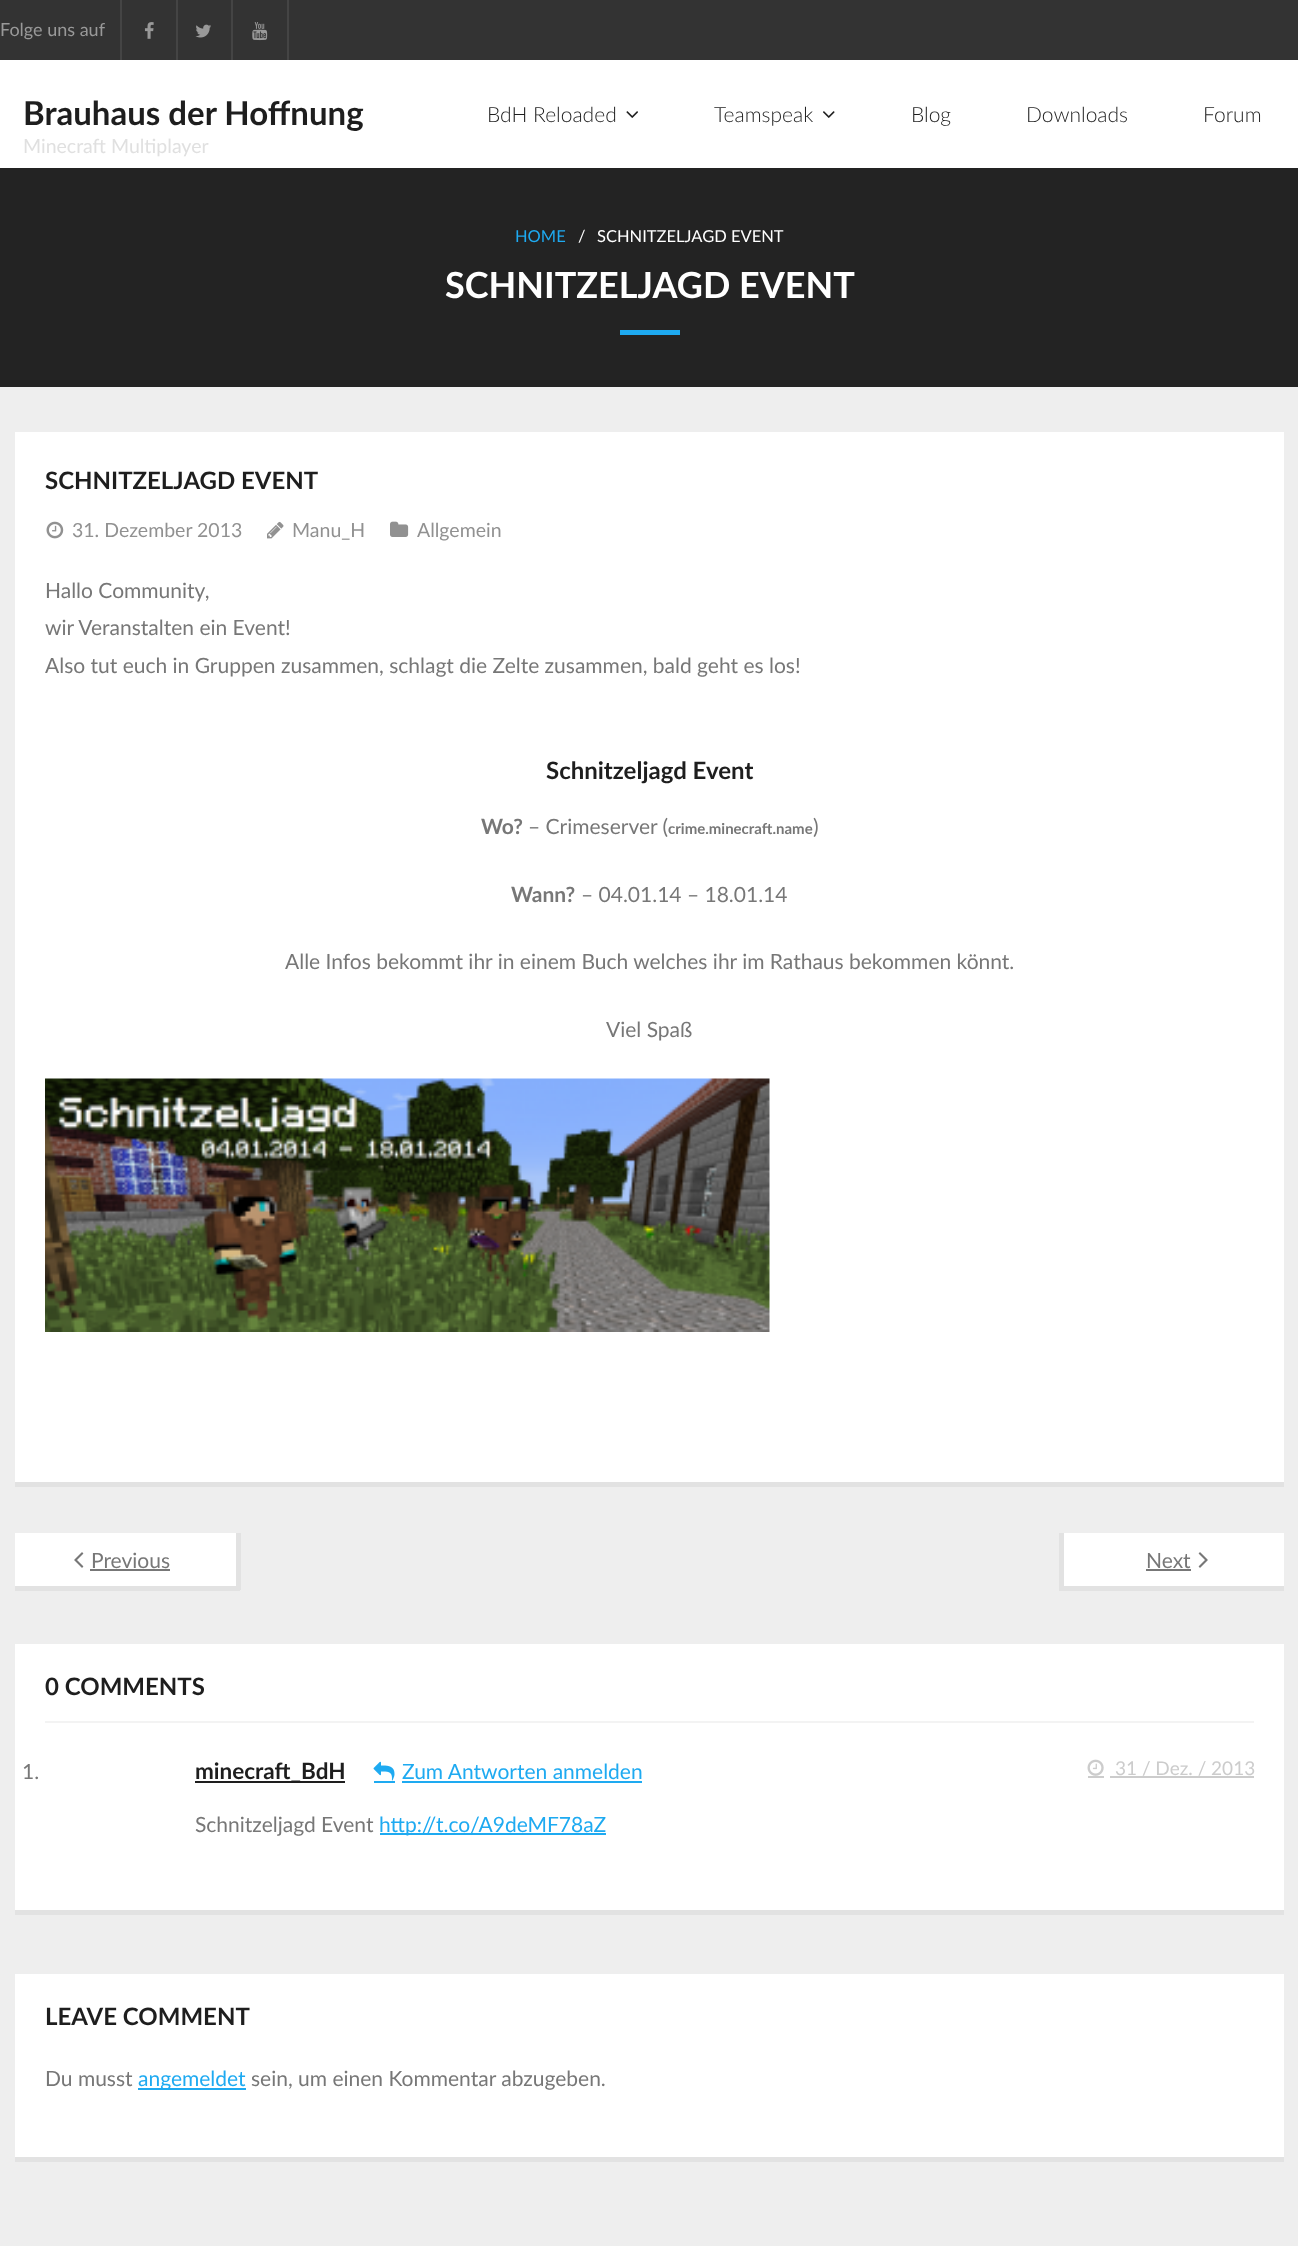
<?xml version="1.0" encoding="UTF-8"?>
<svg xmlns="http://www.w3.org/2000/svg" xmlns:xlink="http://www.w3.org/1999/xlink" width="1298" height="2246">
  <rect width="100%" height="100%" fill="#eeeeee" />
  <rect width="1298" height="60" fill="#333333" />
  <rect x="120" width="2" height="60" fill="#444444" />
  <image x="144" y="22" width="10" height="17" xlink:href="image1.png" />
  <rect x="176" width="2" height="60" fill="#444444" />
  <image x="195" y="24" width="16" height="14" xlink:href="image2.png" />
  <rect x="287" width="2" height="60" fill="#444444" />
  <rect x="231" width="2" height="60" fill="#444444" />
  <image x="252" y="22" width="16" height="19" xlink:href="image3.png" />
  <rect y="60" width="1298" height="108" fill="#ffffff" />
  <image x="626" y="111" width="12" height="7" xlink:href="image4.png" />
  <image x="823" y="111" width="12" height="7" xlink:href="image5.png" />
  <rect y="168" width="1298" height="219" fill="#232323" />
  <rect x="620" y="330" width="60" height="5" fill="#1eaaf1" />
  <rect x="15" y="432" width="1269" height="1050" fill="#ffffff" />
  <rect x="15" y="1482" width="1269" height="5" fill="#e2e2e2" />
  <image x="46" y="521" width="18" height="18" xlink:href="image6.png" />
  <image x="267" y="521" width="17" height="18" xlink:href="image7.png" />
  <image x="390" y="521" width="19" height="16" xlink:href="image8.png" />
  <image x="45" y="1078" width="725" height="254" xlink:href="image9.png" />
  <rect x="15" y="1533" width="221" height="53" fill="#ffffff" />
  <rect x="236" y="1533" width="5" height="57" fill="#e2e2e2" />
  <rect x="15" y="1586" width="225" height="5" fill="#e2e2e2" />
  <image x="74" y="1552" width="10" height="16" xlink:href="image10.png" />
  <rect x="90" y="1569" width="80" height="2" fill="#777777" />
  <rect x="1064" y="1533" width="220" height="53" fill="#ffffff" />
  <rect x="1059" y="1586" width="225" height="5" fill="#e2e2e2" />
  <rect x="1059" y="1533" width="5" height="57" fill="#e2e2e2" />
  <rect x="1146" y="1569" width="45" height="2" fill="#777777" />
  <image x="1198" y="1552" width="10" height="16" xlink:href="image11.png" />
  <rect x="15" y="1644" width="1269" height="266" fill="#ffffff" />
  <rect x="45" y="1721" width="1209" height="2" fill="#f3f3f3" />
  <rect x="15" y="1910" width="1269" height="5" fill="#e2e2e2" />
  <rect x="195" y="1781" width="150" height="2" fill="#1e1e1e" />
  <image x="373" y="1761" width="22" height="20" xlink:href="image12.png" />
  <rect x="374" y="1781" width="21" height="2" fill="#1eaaf1" />
  <rect x="402" y="1781" width="240" height="2" fill="#1eaaf1" />
  <image x="1087" y="1759" width="17" height="17" xlink:href="image13.png" />
  <rect x="1088" y="1776" width="16" height="2" fill="#cccccc" />
  <rect x="1110" y="1776" width="144" height="2" fill="#cccccc" />
  <rect x="380" y="1833" width="226" height="2" fill="#1eaaf1" />
  <rect x="15" y="1974" width="1269" height="183" fill="#ffffff" />
  <rect x="15" y="2157" width="1269" height="5" fill="#e2e2e2" />
  <rect x="138" y="2088" width="108" height="2" fill="#1eaaf1" />
  <text x="0" y="36" style="font-family: Lato; font-size: 18px; fill: #999999">Folge uns auf</text>
  <text x="23" y="125" style="font-family: Lato; font-size: 33px; font-weight: bold; fill: #1e1e1e">Brauhaus der Hoffnung</text>
  <text x="23" y="153" style="font-family: Lato; font-size: 19.5px; fill: #e0e0e0">Minecraft Multiplayer</text>
  <text x="487" y="122" style="font-family: Lato; font-size: 21px; font-weight: 300; fill: #1e1e1e">BdH Reloaded</text>
  <text x="714" y="122" style="font-family: Lato; font-size: 21px; font-weight: 300; fill: #1e1e1e">Teamspeak</text>
  <text x="911" y="122" style="font-family: Lato; font-size: 21px; font-weight: 300; fill: #1e1e1e">Blog</text>
  <text x="1026" y="122" style="font-family: Lato; font-size: 21px; font-weight: 300; fill: #1e1e1e">Downloads</text>
  <text x="1203" y="122" style="font-family: Lato; font-size: 21px; font-weight: 300; fill: #1e1e1e">Forum</text>
  <text x="515" y="242" style="font-family: Lato; font-size: 16.5px; fill: #1eaaf1">HOME</text>
  <text x="578" y="242" style="font-family: Lato; font-size: 16.5px; fill: #ffffff">/</text>
  <text x="597" y="242" style="font-family: Lato; font-size: 16.5px; fill: #ffffff">SCHNITZELJAGD EVENT</text>
  <text x="445" y="298" style="font-family: Lato; font-size: 36px; font-weight: bold; fill: #ffffff">SCHNITZELJAGD EVENT</text>
  <text x="45" y="489" style="font-family: Lato; font-size: 24px; font-weight: bold; fill: #1e1e1e">SCHNITZELJAGD EVENT</text>
  <text x="72" y="537" style="font-family: Lato; font-size: 19.5px; fill: #919191">31. Dezember 2013</text>
  <text x="292" y="537" style="font-family: Lato; font-size: 19.5px; fill: #919191">Manu_H</text>
  <text x="417" y="537" style="font-family: Lato; font-size: 19.5px; fill: #919191">Allgemein</text>
  <text x="45" y="598" style="font-family: Lato; font-size: 21px; fill: #777777">Hallo Community,</text>
  <text x="45" y="635" style="font-family: Lato; font-size: 21px; fill: #777777">wir Veranstalten ein Event!</text>
  <text x="45" y="673" style="font-family: Lato; font-size: 21px; fill: #777777">Also tut euch in Gruppen zusammen, schlagt die Zelte zusammen, bald geht es los!</text>
  <text x="546" y="779" style="font-family: Lato; font-size: 24px; font-weight: bold; fill: #1e1e1e">Schnitzeljagd Event</text>
  <text x="481" y="834" style="font-family: Lato; font-size: 21px; font-weight: bold; fill: #777777">Wo?</text>
  <text x="528" y="834" style="font-family: Lato; font-size: 21px; fill: #777777">– Crimeserver (</text>
  <text x="668" y="834" style="font-family: Lato; font-size: 15px; font-weight: bold; fill: #777777">crime.minecraft.name</text>
  <text x="813" y="834" style="font-family: Lato; font-size: 21px; fill: #777777">)</text>
  <text x="511" y="902" style="font-family: Lato; font-size: 21px; font-weight: bold; fill: #777777">Wann?</text>
  <text x="581" y="902" style="font-family: Lato; font-size: 21px; fill: #777777">– 04.01.14 – 18.01.14</text>
  <text x="285" y="969" style="font-family: Lato; font-size: 21px; fill: #777777">Alle Infos bekommt ihr in einem Buch welches ihr im Rathaus bekommen könnt.</text>
  <text x="606" y="1037" style="font-family: Lato; font-size: 21px; fill: #777777">Viel Spaß</text>
  <text x="91" y="1568" style="font-family: Lato; font-size: 21px; fill: #777777">Previous</text>
  <text x="1146" y="1568" style="font-family: Lato; font-size: 21px; fill: #777777">Next</text>
  <text x="45" y="1695" style="font-family: Lato; font-size: 24px; font-weight: bold; fill: #1e1e1e">0 COMMENTS</text>
  <text x="22" y="1779" style="font-family: Lato; font-size: 21px; fill: #777777">1.</text>
  <text x="195" y="1779" style="font-family: Lato; font-size: 22.5px; font-weight: bold; fill: #1e1e1e">minecraft_BdH</text>
  <text x="402" y="1779" style="font-family: Lato; font-size: 21px; fill: #1eaaf1">Zum Antworten anmelden</text>
  <text x="1115" y="1775" style="font-family: Lato; font-size: 19px; fill: #cccccc">31 / Dez. / 2013</text>
  <text x="195" y="1832" style="font-family: Lato; font-size: 21px; fill: #777777">Schnitzeljagd Event</text>
  <text x="379" y="1832" style="font-family: Lato; font-size: 21px; fill: #1eaaf1">http://t.co/A9deMF78aZ</text>
  <text x="45" y="2025" style="font-family: Lato; font-size: 24px; font-weight: bold; fill: #1e1e1e">LEAVE COMMENT</text>
  <text x="45" y="2086" style="font-family: Lato; font-size: 21px; fill: #777777">Du musst</text>
  <text x="138" y="2086" style="font-family: Lato; font-size: 21px; fill: #1eaaf1">angemeldet</text>
  <text x="251" y="2086" style="font-family: Lato; font-size: 21px; fill: #777777">sein, um einen Kommentar abzugeben.</text>
</svg>
